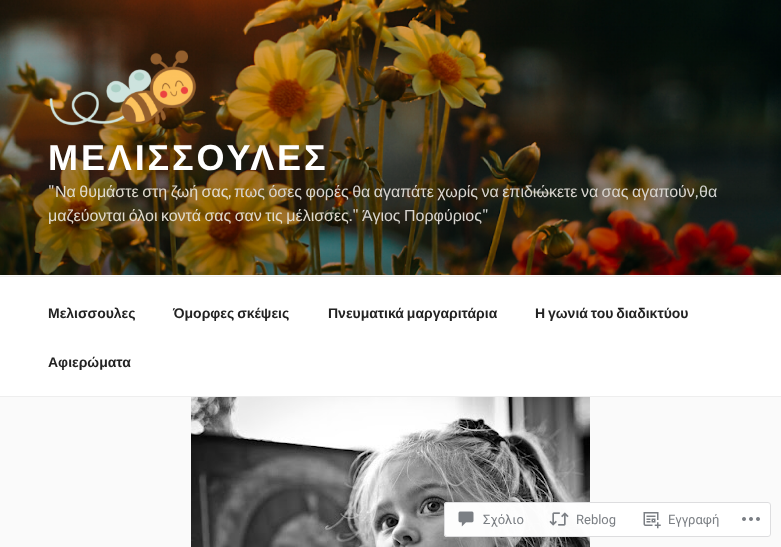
<?xml version="1.0" encoding="UTF-8"?>
<svg xmlns="http://www.w3.org/2000/svg" xmlns:xlink="http://www.w3.org/1999/xlink" width="781" height="547">
  <rect width="100%" height="100%" fill="#fafafa" />
  <image x="0" y="0" width="781" height="275" xlink:href="image1.png" />
  <image x="49" y="50" width="148" height="76" xlink:href="image2.png" />
  <rect y="277" width="781" height="119" fill="#ffffff" />
  <rect y="276" width="781" height="1" fill="#eeeeee" />
  <rect y="396" width="781" height="1" fill="#eeeeee" />
  <image x="191" y="397" width="399" height="150" xlink:href="image3.png" />
  <rect x="444" y="502" width="327" height="35" rx="3" fill="#ffffff" fill-opacity="0.98" />
  <rect x="444.5" y="502.5" width="326" height="34" rx="2.5" fill="none" stroke="#dcdcde" stroke-opacity="0.98" />
  <image x="458" y="511" width="16" height="16" xlink:href="image4.png" />
  <image x="549" y="512" width="20" height="14" xlink:href="image5.png" />
  <image x="643" y="512" width="18" height="17" xlink:href="image6.png" />
  <image x="742" y="517" width="18" height="4" xlink:href="image7.png" />
  <text x="48" y="170" style="font-family: Liberation Sans; font-size: 36px; font-weight: bold; letter-spacing: 2.9px; fill: #ffffff">ΜΕΛΙΣΣΟΥΛΕΣ</text>
  <text x="48" y="197" style="font-family: Libre Franklin; font-size: 16px; font-weight: 100; fill: #d8d5d0">"</text>
  <text x="55" y="197" word-spacing="-1" style="font-family: Liberation Sans; font-size: 16px; fill: #e0dbcf">Να θυμάστε στη ζωή σας</text>
  <text x="228" y="197" style="font-family: Libre Franklin; font-size: 16px; font-weight: 100; fill: #e9e0cc">,</text>
  <text x="234" y="197" word-spacing="-1" style="font-family: Liberation Sans; font-size: 16px; fill: #d8d5d0">πως όσες φορές θα αγαπάτε χωρίς να επιδιώκετε να σας αγαπούν</text>
  <text x="695" y="197" style="font-family: Libre Franklin; font-size: 16px; font-weight: 100; fill: #d2d3d0">,</text>
  <text x="699" y="197" style="font-family: Liberation Sans; font-size: 16px; fill: #d2d3d0">θα</text>
  <text x="48" y="221" word-spacing="-1" style="font-family: Liberation Sans; font-size: 16px; fill: #e0dbcf">μαζεύονται όλοι κοντά σας σαν τις μέλισσες</text>
  <text x="349" y="221" style="font-family: Libre Franklin; font-size: 16px; font-weight: 100; fill: #d8d5d0">."</text>
  <text x="362" y="221" word-spacing="-1" style="font-family: Liberation Sans; font-size: 16px; fill: #d8d5d0">Άγιος Πορφύριος</text>
  <text x="482" y="221" style="font-family: Libre Franklin; font-size: 16px; font-weight: 100; fill: #d2d3d0">"</text>
  <text x="48" y="318" style="font-family: Liberation Sans; font-size: 14px; font-weight: bold; fill: #222222">Μελισσουλες</text>
  <text x="173" y="318" word-spacing="-1" style="font-family: Liberation Sans; font-size: 14px; font-weight: bold; fill: #222222">Όμορφες σκέψεις</text>
  <text x="328" y="318" word-spacing="-1" style="font-family: Liberation Sans; font-size: 14px; font-weight: bold; fill: #222222">Πνευματικά μαργαριτάρια</text>
  <text x="535" y="318" word-spacing="-1" style="font-family: Liberation Sans; font-size: 14px; font-weight: bold; fill: #222222">Η γωνιά του διαδικτύου</text>
  <text x="48" y="367" style="font-family: Liberation Sans; font-size: 14px; font-weight: bold; fill: #222222">Αφιερώματα</text>
  <text x="483" y="524" style="font-family: Roboto; font-size: 13px; fill: #7b7f84">Σχόλιο</text>
  <text x="576" y="524" style="font-family: Roboto; font-size: 13px; fill: #7b7f84">Reblog</text>
  <text x="668" y="524" style="font-family: Roboto; font-size: 13px; fill: #7b7f84">Εγγραφή</text>
</svg>
